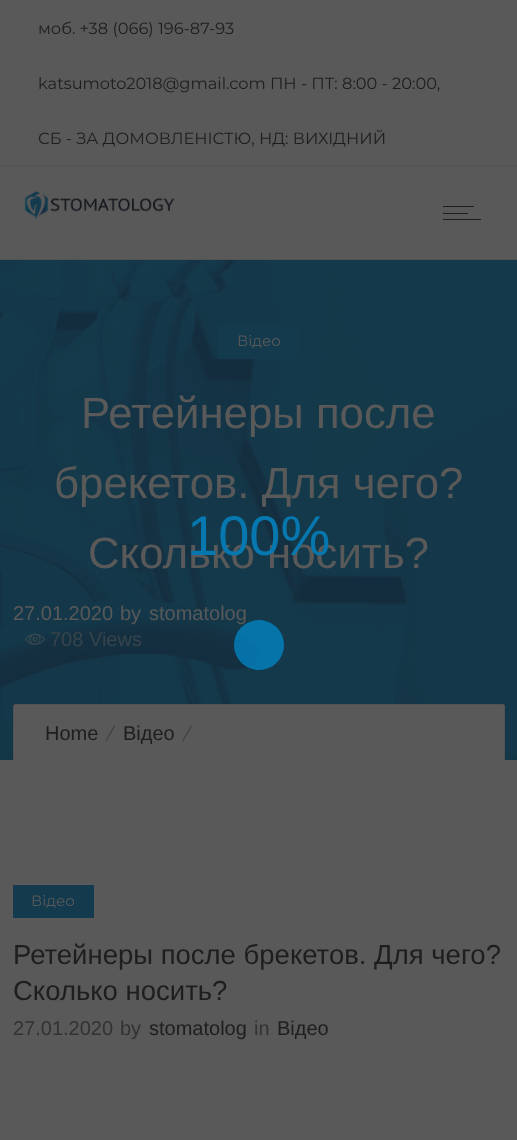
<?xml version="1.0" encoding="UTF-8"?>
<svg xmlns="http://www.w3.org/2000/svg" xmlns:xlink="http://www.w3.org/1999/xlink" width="517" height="1140">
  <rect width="100%" height="100%" fill="#595959" />
  <rect y="259" width="517" height="1" fill="#535353" />
  <rect y="165" width="517" height="1" fill="#535353" />
  <image x="25" y="191" width="150" height="28" xlink:href="image1.png" />
  <rect x="443" y="206" width="31" height="1" fill="#1f1e1f" />
  <rect x="443" y="213" width="25" height="1" fill="#1f1e1f" />
  <rect x="443" y="219" width="38" height="1" fill="#1f1e1f" />
  <image x="0" y="260" width="517" height="500" xlink:href="image2.png" />
  <rect y="759" width="517" height="1" fill="#1b1b1b" fill-opacity="0.1" />
  <rect x="218" y="326" width="82" height="33" fill="#143a4d" />
  <image x="266" y="605" width="18" height="15" xlink:href="image3.png" />
  <image x="25" y="633" width="20" height="12" xlink:href="image4.png" />
  <path d="M 15.5 704 h 487 c 1.5 0 2.5 1 2.5 2.5 v 53.5 h -492 v -53.5 c 0 -1.5 1 -2.5 2.5 -2.5 z" fill="#595959" />
  <rect x="14" y="704" width="490" height="1" fill="#1b1b1b" fill-opacity="0.1" />
  <rect x="504" y="705" width="1" height="55" fill="#1b1b1b" fill-opacity="0.1" />
  <rect x="13" y="705" width="1" height="55" fill="#1b1b1b" fill-opacity="0.1" />
  <path d="M 114 725.5 l 1 0.5 l -8.5 15.5 l -1 -0.5 z" fill="#414142" />
  <path d="M 191 725.5 l 1 0.5 l -9 15.5 l -1 -0.5 z" fill="#414142" />
  <rect x="13" y="885" width="81" height="33" fill="#143a4d" />
  <text x="38" y="34" style="font-family: Montserrat; font-size: 16.25px; fill: #1f1e1f">моб. +38 (066) 196-87-93</text>
  <text x="38" y="89" style="font-family: Montserrat; font-size: 16.25px; fill: #1f1e1f">katsumoto2018@gmail.com ПН - ПТ: 8:00 - 20:00,</text>
  <text x="38" y="144" style="font-family: Montserrat; font-size: 16.25px; fill: #1f1e1f">СБ - ЗА ДОМОВЛЕНІСТЮ, НД: ВИХІДНИЙ</text>
  <text x="237" y="346" style="font-family: Montserrat; font-size: 15px; fill: #595959">Відео</text>
  <text x="81" y="428" style="font-family: Liberation Sans; font-size: 43.75px; fill: #595959">Ретейнеры после</text>
  <text x="54" y="498" style="font-family: Liberation Sans; font-size: 43.75px; fill: #595959">брекетов. Для чего?</text>
  <text x="88" y="568" style="font-family: Liberation Sans; font-size: 43.75px; fill: #595959">Сколько носить?</text>
  <text x="13" y="620" style="font-family: Liberation Sans; font-size: 20px; fill: #595959">27.01.2020</text>
  <text x="120" y="620" style="font-family: Liberation Sans; font-size: 20px; fill: #595959">by</text>
  <text x="149" y="620" style="font-family: Liberation Sans; font-size: 20px; fill: #595959">stomatolog</text>
  <text x="50" y="646" style="font-family: Liberation Sans; font-size: 20px; fill: #36444c">708 Views</text>
  <text x="45" y="740" style="font-family: Liberation Sans; font-size: 20px; fill: #1f1e1f">Home</text>
  <text x="123" y="740" style="font-family: Liberation Sans; font-size: 20px; fill: #1f1e1f">Відео</text>
  <text x="31" y="906" style="font-family: Montserrat; font-size: 15px; fill: #595959">Відео</text>
  <text x="13" y="964" style="font-family: Liberation Sans; font-size: 27.5px; fill: #1f1e1f">Ретейнеры после брекетов. Для чего?</text>
  <text x="13" y="1000" style="font-family: Liberation Sans; font-size: 27.5px; fill: #1f1e1f">Сколько носить?</text>
  <text x="13" y="1035" style="font-family: Liberation Sans; font-size: 20px; fill: #323232">27.01.2020</text>
  <text x="120" y="1035" style="font-family: Liberation Sans; font-size: 20px; fill: #323232">by</text>
  <text x="149" y="1035" style="font-family: Liberation Sans; font-size: 20px; fill: #1f1e1f">stomatolog</text>
  <text x="254" y="1035" style="font-family: Liberation Sans; font-size: 20px; fill: #323232">in</text>
  <text x="277" y="1035" style="font-family: Liberation Sans; font-size: 20px; fill: #1f1e1f">Відео</text>
  <text x="187" y="555" style="font-family: Liberation Sans; font-size: 56px; fill: #0778af">100%</text>
  <circle cx="259" cy="645" r="25" fill="#008fd5" fill-opacity="0.44" />
  <circle cx="259" cy="645" r="25" fill="#008fd5" fill-opacity="0.44" />
</svg>
